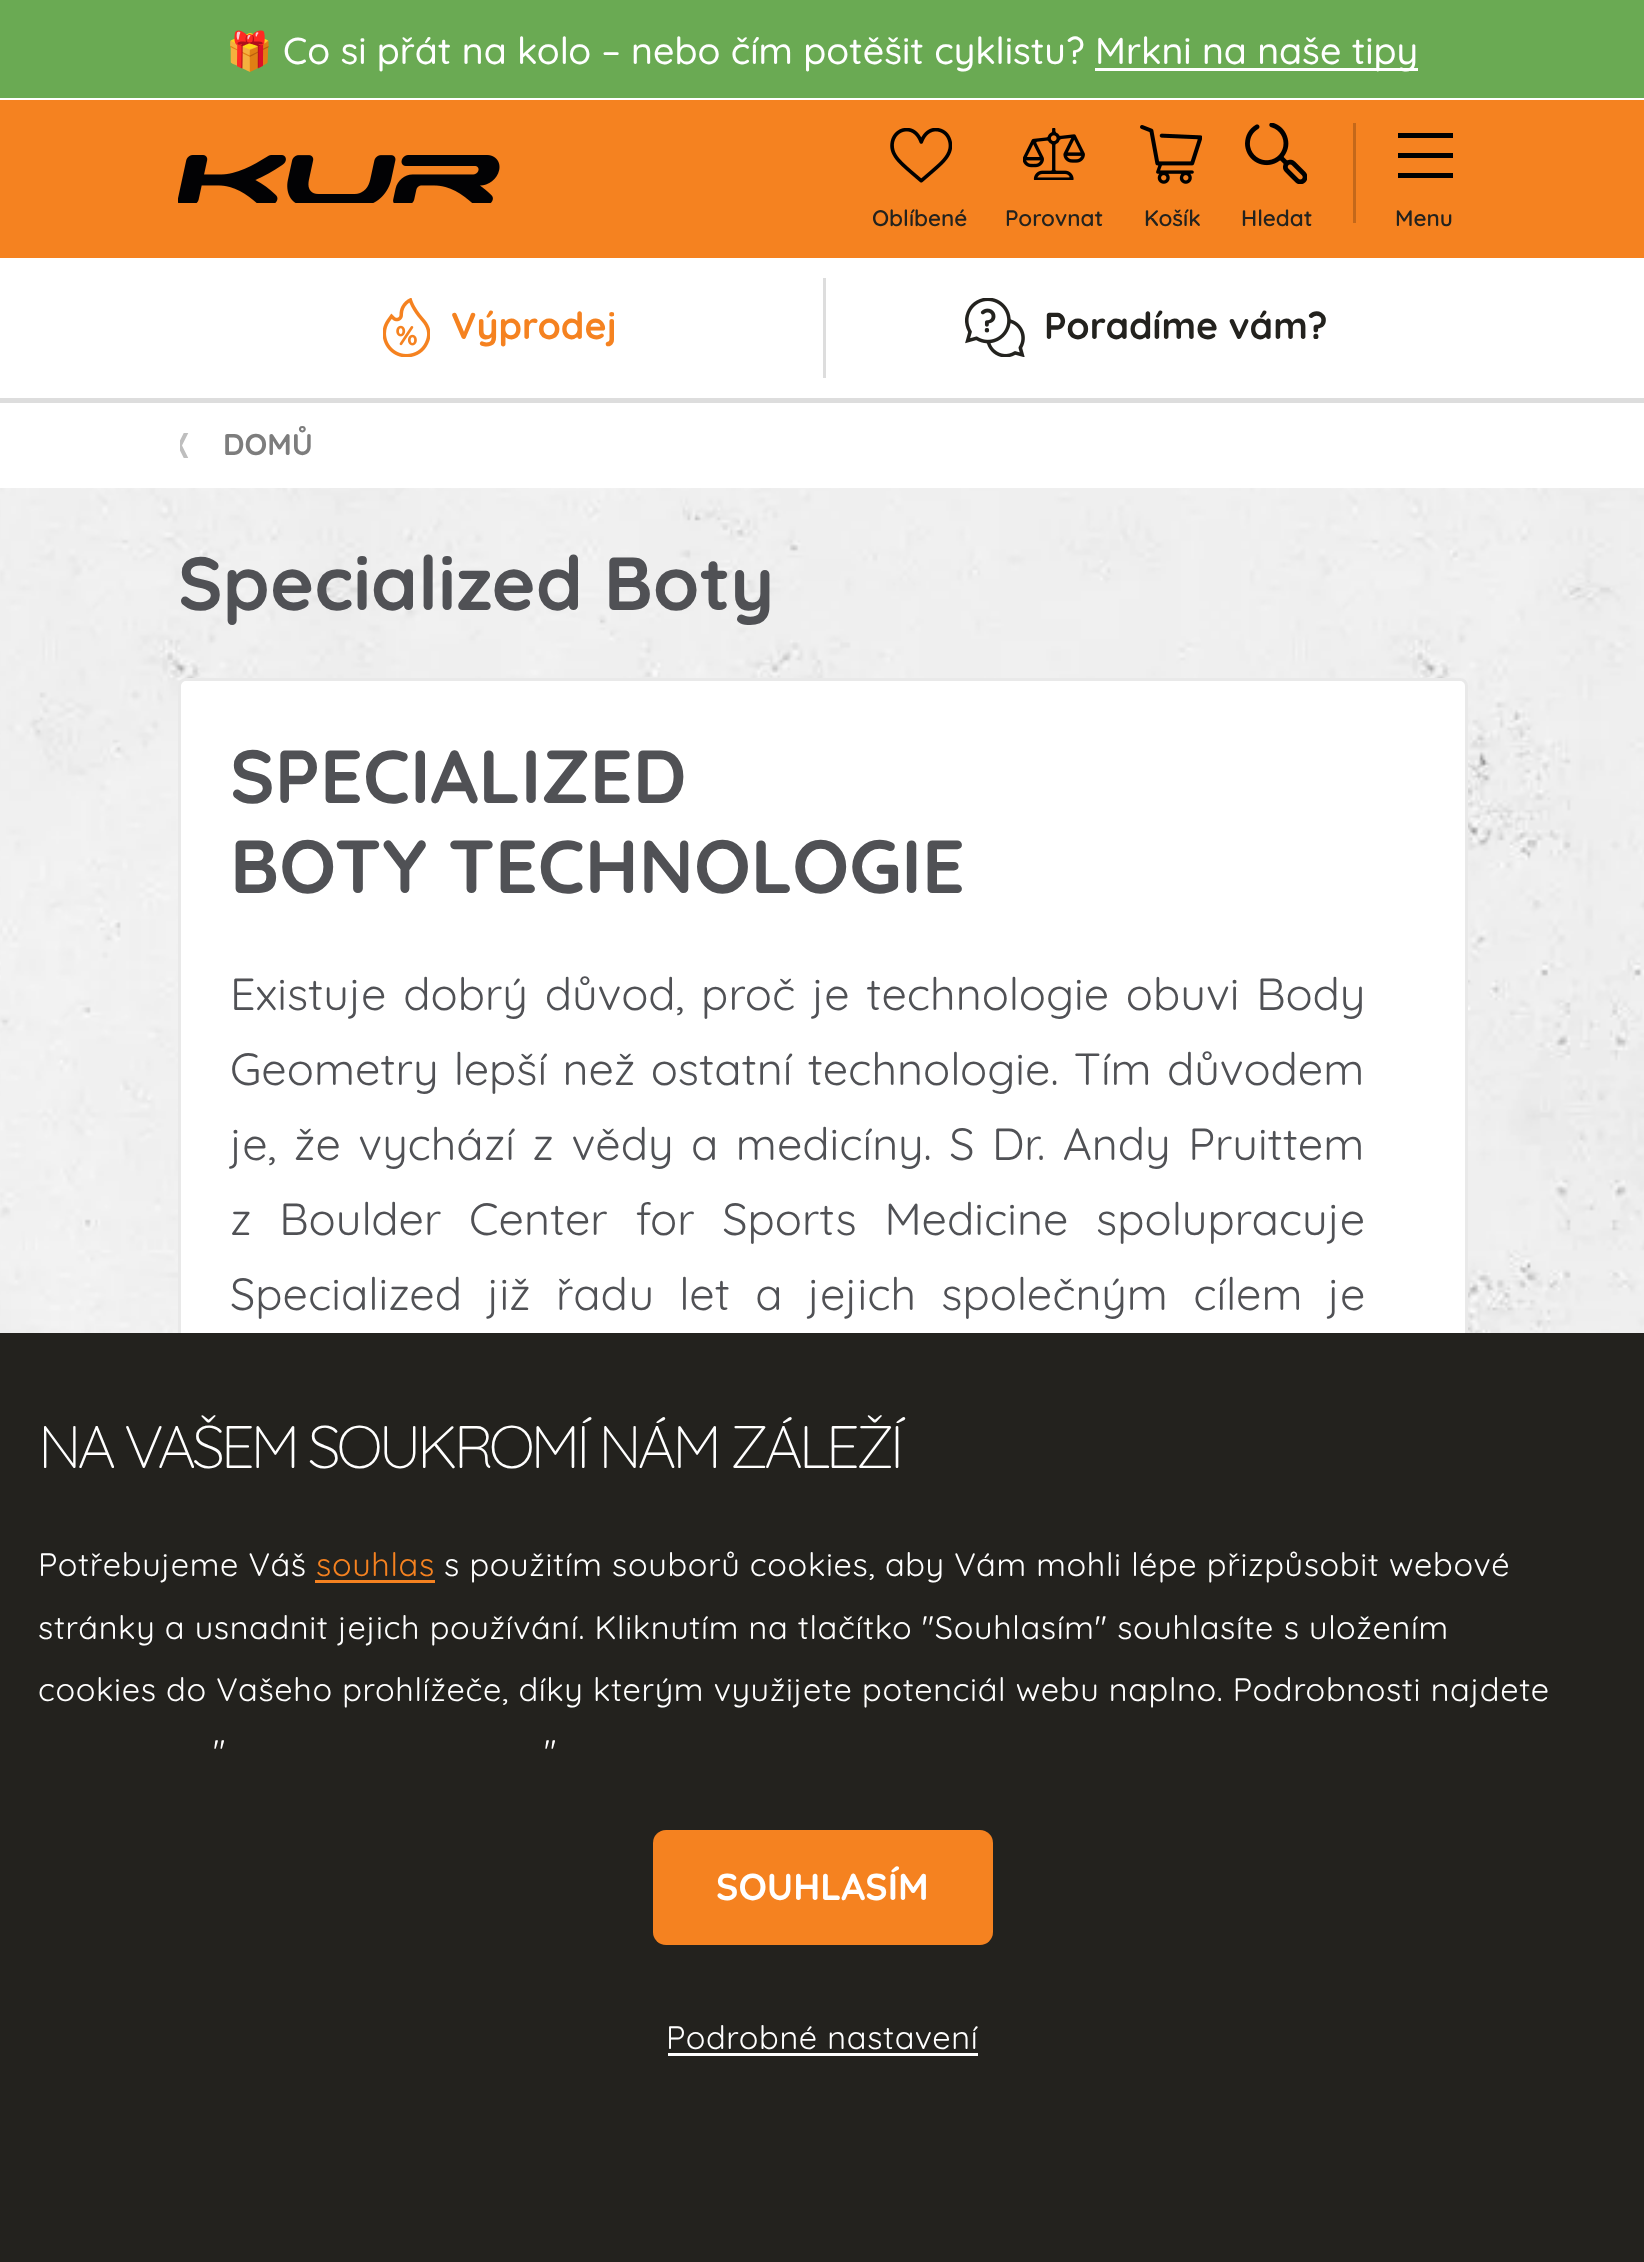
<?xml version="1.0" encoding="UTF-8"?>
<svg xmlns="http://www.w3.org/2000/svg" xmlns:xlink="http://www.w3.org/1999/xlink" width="1644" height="2262">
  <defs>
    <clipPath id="clip1"><rect x="180" y="433" width="13" height="25" /></clipPath>
  </defs>
  <rect width="100%" height="100%" fill="#ffffff" />
  <image x="0" y="488" width="1644" height="845" xlink:href="image1.png" />
  <rect width="1644" height="98" fill="#6aaa53" />
  <rect x="1095" y="68" width="323" height="3" fill="#ffffff" />
  <rect y="100" width="1644" height="158" fill="#f58220" />
  <image x="178" y="155" width="322" height="48" xlink:href="image2.png" />
  <image x="890" y="128" width="62" height="55" xlink:href="image3.png" />
  <image x="1023" y="128" width="62" height="52" xlink:href="image4.png" />
  <image x="1140" y="125" width="62" height="59" xlink:href="image5.png" />
  <image x="1245" y="123" width="62" height="61" xlink:href="image6.png" />
  <rect x="1353" y="123" width="3" height="100" fill="#c4681a" />
  <rect x="1398" y="173" width="55" height="5" fill="#000000" />
  <rect x="1398" y="133" width="55" height="5" fill="#000000" />
  <rect x="1398" y="153" width="55" height="5" fill="#000000" />
  <rect y="398" width="1644" height="5" fill="#dddddd" />
  <image x="383" y="298" width="47" height="59" xlink:href="image7.png" />
  <rect x="823" y="278" width="3" height="100" fill="#dddddd" />
  <image x="965" y="298" width="60" height="59" xlink:href="image8.png" />
  <g clip-path="url(#clip1)">
    <path d="M 190 429.5 l -8 16 l 8 16 h -4.5 l -8 -16 l 8 -16 z" fill="#bebebe" />
  </g>
  <rect x="179.5" y="679.5" width="1287" height="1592" rx="6.5" fill="#ffffff" stroke="#e9e9e9" stroke-width="3" />
  <rect y="1333" width="1644" height="929" fill="#23221e" />
  <rect x="315" y="1580" width="120" height="3" fill="#f58220" />
  <rect x="653" y="1830" width="340" height="115" rx="13" fill="#f58220" />
  <rect x="668" y="2053" width="310" height="3" fill="#ffffff" />
  <text x="226" y="64" style="font-family: Noto Color Emoji; font-size: 37.5px; fill: #ffffff">🎁</text>
  <text x="283" y="64" style="font-family: Quicksand; font-size: 37.5px; font-weight: 500; fill: #ffffff">Co si přát na kolo – nebo čím potěšit cyklistu?</text>
  <text x="1095" y="64" style="font-family: Quicksand; font-size: 37.5px; font-weight: 500; fill: #ffffff">Mrkni na naše tipy</text>
  <text x="872" y="226" style="font-family: Quicksand; font-size: 22.5px; font-weight: 600; fill: #23221e">Oblíbené</text>
  <text x="1005" y="226" style="font-family: Quicksand; font-size: 22.5px; font-weight: 600; fill: #23221e">Porovnat</text>
  <text x="1144" y="226" style="font-family: Quicksand; font-size: 22.5px; font-weight: 600; fill: #23221e">Košík</text>
  <text x="1241" y="226" style="font-family: Quicksand; font-size: 22.5px; font-weight: 600; fill: #23221e">Hledat</text>
  <text x="1395" y="226" style="font-family: Quicksand; font-size: 22.5px; font-weight: 600; fill: #23221e">Menu</text>
  <text x="451" y="339" style="font-family: Quicksand; font-size: 37.5px; font-weight: bold; fill: #f58220">Výprodej</text>
  <text x="1044" y="339" style="font-family: Quicksand; font-size: 37.5px; font-weight: bold; fill: #23221e">Poradíme vám?</text>
  <text x="223" y="455" style="font-family: Quicksand; font-size: 30px; font-weight: bold; fill: #7d7d7d">DOMŮ</text>
  <text x="178" y="610" style="font-family: Quicksand; font-size: 75px; font-weight: bold; fill: #505155">Specialized Boty</text>
  <text x="230" y="803" style="font-family: Quicksand; font-size: 75px; font-weight: bold; fill: #505155">SPECIALIZED</text>
  <text x="230" y="893" style="font-family: Quicksand; font-size: 75px; font-weight: bold; fill: #505155">BOTY TECHNOLOGIE</text>
  <text x="230" y="1010" word-spacing="4.5" style="font-family: Quicksand; font-size: 45px; fill: #505155">Existuje dobrý důvod, proč je technologie obuvi Body</text>
  <text x="230" y="1085" word-spacing="3" style="font-family: Quicksand; font-size: 45px; fill: #505155">Geometry lepší než ostatní technologie. Tím důvodem</text>
  <text x="230" y="1160" word-spacing="5.25" style="font-family: Quicksand; font-size: 45px; fill: #505155">je, že vychází z vědy a medicíny. S Dr. Andy Pruittem</text>
  <text x="230" y="1235" word-spacing="15.5" style="font-family: Quicksand; font-size: 45px; fill: #505155">z Boulder Center for Sports Medicine spolupracuje</text>
  <text x="230" y="1310" word-spacing="13" style="font-family: Quicksand; font-size: 45px; fill: #505155">Specialized již řadu let a jejich společným cílem je</text>
  <text x="38" y="1468" style="font-family: Quicksand; font-size: 60px; font-weight: 300; letter-spacing: -4.25px; fill: #ffffff">NA VAŠEM SOUKROMÍ NÁM ZÁLEŽÍ</text>
  <text x="38" y="1576" style="font-family: Quicksand; font-size: 32.5px; letter-spacing: 0.65px; fill: #ffffff">Potřebujeme Váš</text>
  <text x="316" y="1576" style="font-family: Quicksand; font-size: 32.5px; letter-spacing: 0.65px; fill: #f58220">souhlas</text>
  <text x="444" y="1576" style="font-family: Quicksand; font-size: 32.5px; letter-spacing: 0.65px; fill: #ffffff">s použitím souborů cookies, aby Vám mohli lépe přizpůsobit webové</text>
  <text x="38" y="1639" style="font-family: Quicksand; font-size: 32.5px; letter-spacing: 0.65px; fill: #ffffff">stránky a usnadnit jejich používání. Kliknutím na tlačítko "Souhlasím" souhlasíte s uložením</text>
  <text x="38" y="1701" style="font-family: Quicksand; font-size: 32.5px; letter-spacing: 0.65px; fill: #ffffff">cookies do Vašeho prohlížeče, díky kterým využijete potenciál webu naplno. Podrobnosti najdete</text>
  <text x="213" y="1763" style="font-family: Quicksand; font-size: 32.5px; letter-spacing: 0.65px; fill: #ffffff">"</text>
  <text x="544" y="1763" style="font-family: Quicksand; font-size: 32.5px; letter-spacing: 0.65px; fill: #ffffff">"</text>
  <text x="716" y="1900" style="font-family: Quicksand; font-size: 37.5px; font-weight: bold; fill: #ffffff">SOUHLASÍM</text>
  <text x="666" y="2049" style="font-family: Quicksand; font-size: 32.5px; letter-spacing: 0.65px; fill: #ffffff">Podrobné nastavení</text>
</svg>
